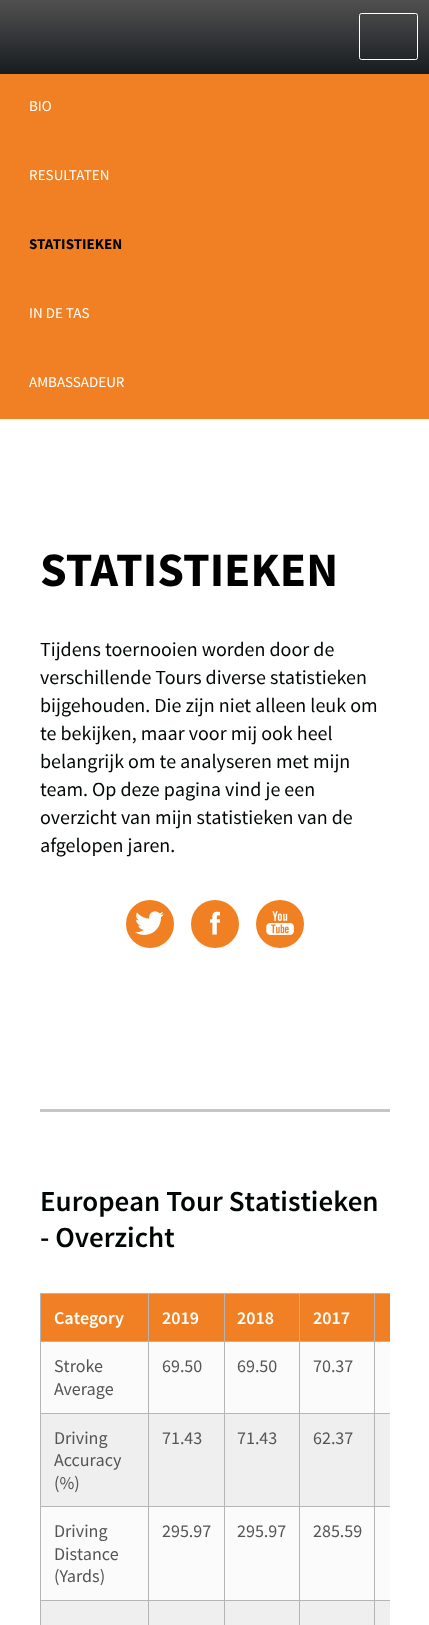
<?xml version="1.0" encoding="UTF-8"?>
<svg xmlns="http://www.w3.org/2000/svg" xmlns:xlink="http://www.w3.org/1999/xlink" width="429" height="1625">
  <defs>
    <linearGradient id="g1" gradientUnits="userSpaceOnUse" x1="215" y1="0" x2="215" y2="74"><stop offset="0" stop-color="#515050" /><stop offset="1" stop-color="#171c1f" /></linearGradient>
  </defs>
  <rect width="100%" height="100%" fill="#ffffff" />
  <rect width="429" height="74" fill="url(#g1)" />
  <rect x="359.5" y="13.5" width="58" height="46" rx="2" fill="none" stroke="#ffffff" />
  <rect y="74" width="429" height="345" fill="#f08023" />
  <rect x="40" y="1109" width="350" height="3" fill="#c5c6c8" />
  <circle cx="150" cy="924" r="24" fill="#f08021" />
  <image x="135" y="911" width="29" height="24" xlink:href="image1.png" />
  <circle cx="215" cy="924" r="24" fill="#f08021" />
  <image x="210" y="911" width="10" height="24" xlink:href="image2.png" />
  <circle cx="280" cy="924" r="24" fill="#f08021" />
  <image x="266" y="911" width="28" height="24" xlink:href="image3.png" />
  <rect x="41" y="1294" width="349" height="47" fill="#f08023" />
  <rect x="374" y="1293" width="16" height="1" fill="#b5b5b5" />
  <rect x="41" y="1342" width="349" height="71" fill="#fbfbfb" />
  <rect x="374" y="1341" width="16" height="1" fill="#b5b5b5" />
  <rect x="374" y="1413" width="16" height="1" fill="#b5b5b5" />
  <rect x="41" y="1414" width="349" height="92" fill="#efeff0" />
  <rect x="41" y="1507" width="349" height="93" fill="#fbfbfb" />
  <rect x="374" y="1506" width="16" height="1" fill="#b5b5b5" />
  <rect x="374" y="1600" width="16" height="1" fill="#b5b5b5" />
  <rect x="41" y="1601" width="349" height="24" fill="#efeff0" />
  <rect x="374" y="1600" width="1" height="25" fill="#b5b5b5" />
  <rect x="299" y="1600" width="76" height="1" fill="#b5b5b5" />
  <rect x="374" y="1506" width="1" height="95" fill="#b5b5b5" />
  <rect x="299" y="1506" width="76" height="1" fill="#b5b5b5" />
  <rect x="374" y="1413" width="1" height="95" fill="#b5b5b5" />
  <rect x="299" y="1413" width="76" height="1" fill="#b5b5b5" />
  <rect x="374" y="1341" width="1" height="73" fill="#b5b5b5" />
  <rect x="299" y="1341" width="76" height="1" fill="#b5b5b5" />
  <rect x="374" y="1293" width="1" height="50" fill="#b5b5b5" />
  <rect x="299" y="1293" width="76" height="1" fill="#b5b5b5" />
  <rect x="299" y="1600" width="1" height="25" fill="#b5b5b5" />
  <rect x="224" y="1600" width="76" height="1" fill="#b5b5b5" />
  <rect x="299" y="1506" width="1" height="95" fill="#b5b5b5" />
  <rect x="224" y="1506" width="76" height="1" fill="#b5b5b5" />
  <rect x="299" y="1413" width="1" height="95" fill="#b5b5b5" />
  <rect x="224" y="1413" width="76" height="1" fill="#b5b5b5" />
  <rect x="299" y="1341" width="1" height="73" fill="#b5b5b5" />
  <rect x="224" y="1341" width="76" height="1" fill="#b5b5b5" />
  <rect x="299" y="1293" width="1" height="50" fill="#b5b5b5" />
  <rect x="224" y="1293" width="76" height="1" fill="#b5b5b5" />
  <rect x="224" y="1600" width="1" height="25" fill="#b5b5b5" />
  <rect x="148" y="1600" width="77" height="1" fill="#b5b5b5" />
  <rect x="224" y="1506" width="1" height="95" fill="#b5b5b5" />
  <rect x="148" y="1506" width="77" height="1" fill="#b5b5b5" />
  <rect x="224" y="1413" width="1" height="95" fill="#b5b5b5" />
  <rect x="148" y="1413" width="77" height="1" fill="#b5b5b5" />
  <rect x="224" y="1341" width="1" height="73" fill="#b5b5b5" />
  <rect x="148" y="1341" width="77" height="1" fill="#b5b5b5" />
  <rect x="224" y="1293" width="1" height="50" fill="#b5b5b5" />
  <rect x="148" y="1293" width="77" height="1" fill="#b5b5b5" />
  <rect x="148" y="1600" width="1" height="25" fill="#b5b5b5" />
  <rect x="40" y="1600" width="109" height="1" fill="#b5b5b5" />
  <rect x="148" y="1506" width="1" height="95" fill="#b5b5b5" />
  <rect x="40" y="1506" width="109" height="1" fill="#b5b5b5" />
  <rect x="148" y="1413" width="1" height="95" fill="#b5b5b5" />
  <rect x="40" y="1413" width="109" height="1" fill="#b5b5b5" />
  <rect x="148" y="1341" width="1" height="73" fill="#b5b5b5" />
  <rect x="40" y="1341" width="109" height="1" fill="#b5b5b5" />
  <rect x="148" y="1293" width="1" height="50" fill="#b5b5b5" />
  <rect x="40" y="1293" width="109" height="1" fill="#b5b5b5" />
  <rect x="40" y="1600" width="1" height="25" fill="#b5b5b5" />
  <rect x="40" y="1506" width="1" height="95" fill="#b5b5b5" />
  <rect x="40" y="1413" width="1" height="95" fill="#b5b5b5" />
  <rect x="40" y="1341" width="1" height="73" fill="#b5b5b5" />
  <rect x="40" y="1293" width="1" height="50" fill="#b5b5b5" />
  <text x="29" y="111" style="font-family: Source Sans Pro; font-size: 15px; fill: #ffffff">BIO</text>
  <text x="29" y="180" style="font-family: Source Sans Pro; font-size: 15px; fill: #ffffff">RESULTATEN</text>
  <text x="29" y="249" style="font-family: Source Sans Pro; font-size: 15px; font-weight: bold; fill: #000000">STATISTIEKEN</text>
  <text x="29" y="318" style="font-family: Source Sans Pro; font-size: 15px; fill: #ffffff">IN DE TAS</text>
  <text x="29" y="387" style="font-family: Source Sans Pro; font-size: 15px; fill: #ffffff">AMBASSADEUR</text>
  <text x="40" y="586" style="font-family: Source Sans Pro; font-size: 48px; font-weight: bold; fill: #000000">STATISTIEKEN</text>
  <text x="40" y="656" style="font-family: Source Sans Pro; font-size: 20px; fill: #000604">Tijdens toernooien worden door de</text>
  <text x="40" y="684" style="font-family: Source Sans Pro; font-size: 20px; fill: #000604">verschillende Tours diverse statistieken</text>
  <text x="40" y="712" style="font-family: Source Sans Pro; font-size: 20px; fill: #000604">bijgehouden. Die zijn niet alleen leuk om</text>
  <text x="40" y="740" style="font-family: Source Sans Pro; font-size: 20px; fill: #000604">te bekijken, maar voor mij ook heel</text>
  <text x="40" y="768" style="font-family: Source Sans Pro; font-size: 20px; fill: #000604">belangrijk om te analyseren met mijn</text>
  <text x="40" y="796" style="font-family: Source Sans Pro; font-size: 20px; fill: #000604">team. Op deze pagina vind je een</text>
  <text x="40" y="824" style="font-family: Source Sans Pro; font-size: 20px; fill: #000604">overzicht van mijn statistieken van de</text>
  <text x="40" y="852" style="font-family: Source Sans Pro; font-size: 20px; fill: #000604">afgelopen jaren.</text>
  <text x="40" y="1211" style="font-family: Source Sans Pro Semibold; font-size: 29px; font-weight: 600; fill: #000604">European Tour Statistieken</text>
  <text x="40" y="1247" style="font-family: Source Sans Pro Semibold; font-size: 29px; font-weight: 600; fill: #000604">- Overzicht</text>
  <text x="54" y="1324" style="font-family: Source Sans Pro Semibold; font-size: 18px; font-weight: 600; fill: #ffffff">Category</text>
  <text x="162" y="1324" style="font-family: Source Sans Pro Semibold; font-size: 18px; font-weight: 600; fill: #ffffff">2019</text>
  <text x="237" y="1324" style="font-family: Source Sans Pro Semibold; font-size: 18px; font-weight: 600; fill: #ffffff">2018</text>
  <text x="313" y="1324" style="font-family: Source Sans Pro Semibold; font-size: 18px; font-weight: 600; fill: #ffffff">2017</text>
  <text x="54" y="1372" style="font-family: Source Sans Pro; font-size: 18px; fill: #555557">Stroke</text>
  <text x="54" y="1395" style="font-family: Source Sans Pro; font-size: 18px; fill: #555557">Average</text>
  <text x="162" y="1372" style="font-family: Source Sans Pro; font-size: 18px; fill: #555557">69.50</text>
  <text x="237" y="1372" style="font-family: Source Sans Pro; font-size: 18px; fill: #555557">69.50</text>
  <text x="313" y="1372" style="font-family: Source Sans Pro; font-size: 18px; fill: #555557">70.37</text>
  <text x="54" y="1444" style="font-family: Source Sans Pro; font-size: 18px; fill: #555557">Driving</text>
  <text x="54" y="1466" style="font-family: Source Sans Pro; font-size: 18px; fill: #555557">Accuracy</text>
  <text x="54" y="1489" style="font-family: Source Sans Pro; font-size: 18px; fill: #555557">(%)</text>
  <text x="162" y="1444" style="font-family: Source Sans Pro; font-size: 18px; fill: #555557">71.43</text>
  <text x="237" y="1444" style="font-family: Source Sans Pro; font-size: 18px; fill: #555557">71.43</text>
  <text x="313" y="1444" style="font-family: Source Sans Pro; font-size: 18px; fill: #555557">62.37</text>
  <text x="54" y="1537" style="font-family: Source Sans Pro; font-size: 18px; fill: #555557">Driving</text>
  <text x="54" y="1560" style="font-family: Source Sans Pro; font-size: 18px; fill: #555557">Distance</text>
  <text x="54" y="1582" style="font-family: Source Sans Pro; font-size: 18px; fill: #555557">(Yards)</text>
  <text x="162" y="1537" style="font-family: Source Sans Pro; font-size: 18px; fill: #555557">295.97</text>
  <text x="237" y="1537" style="font-family: Source Sans Pro; font-size: 18px; fill: #555557">295.97</text>
  <text x="313" y="1537" style="font-family: Source Sans Pro; font-size: 18px; fill: #555557">285.59</text>
</svg>
